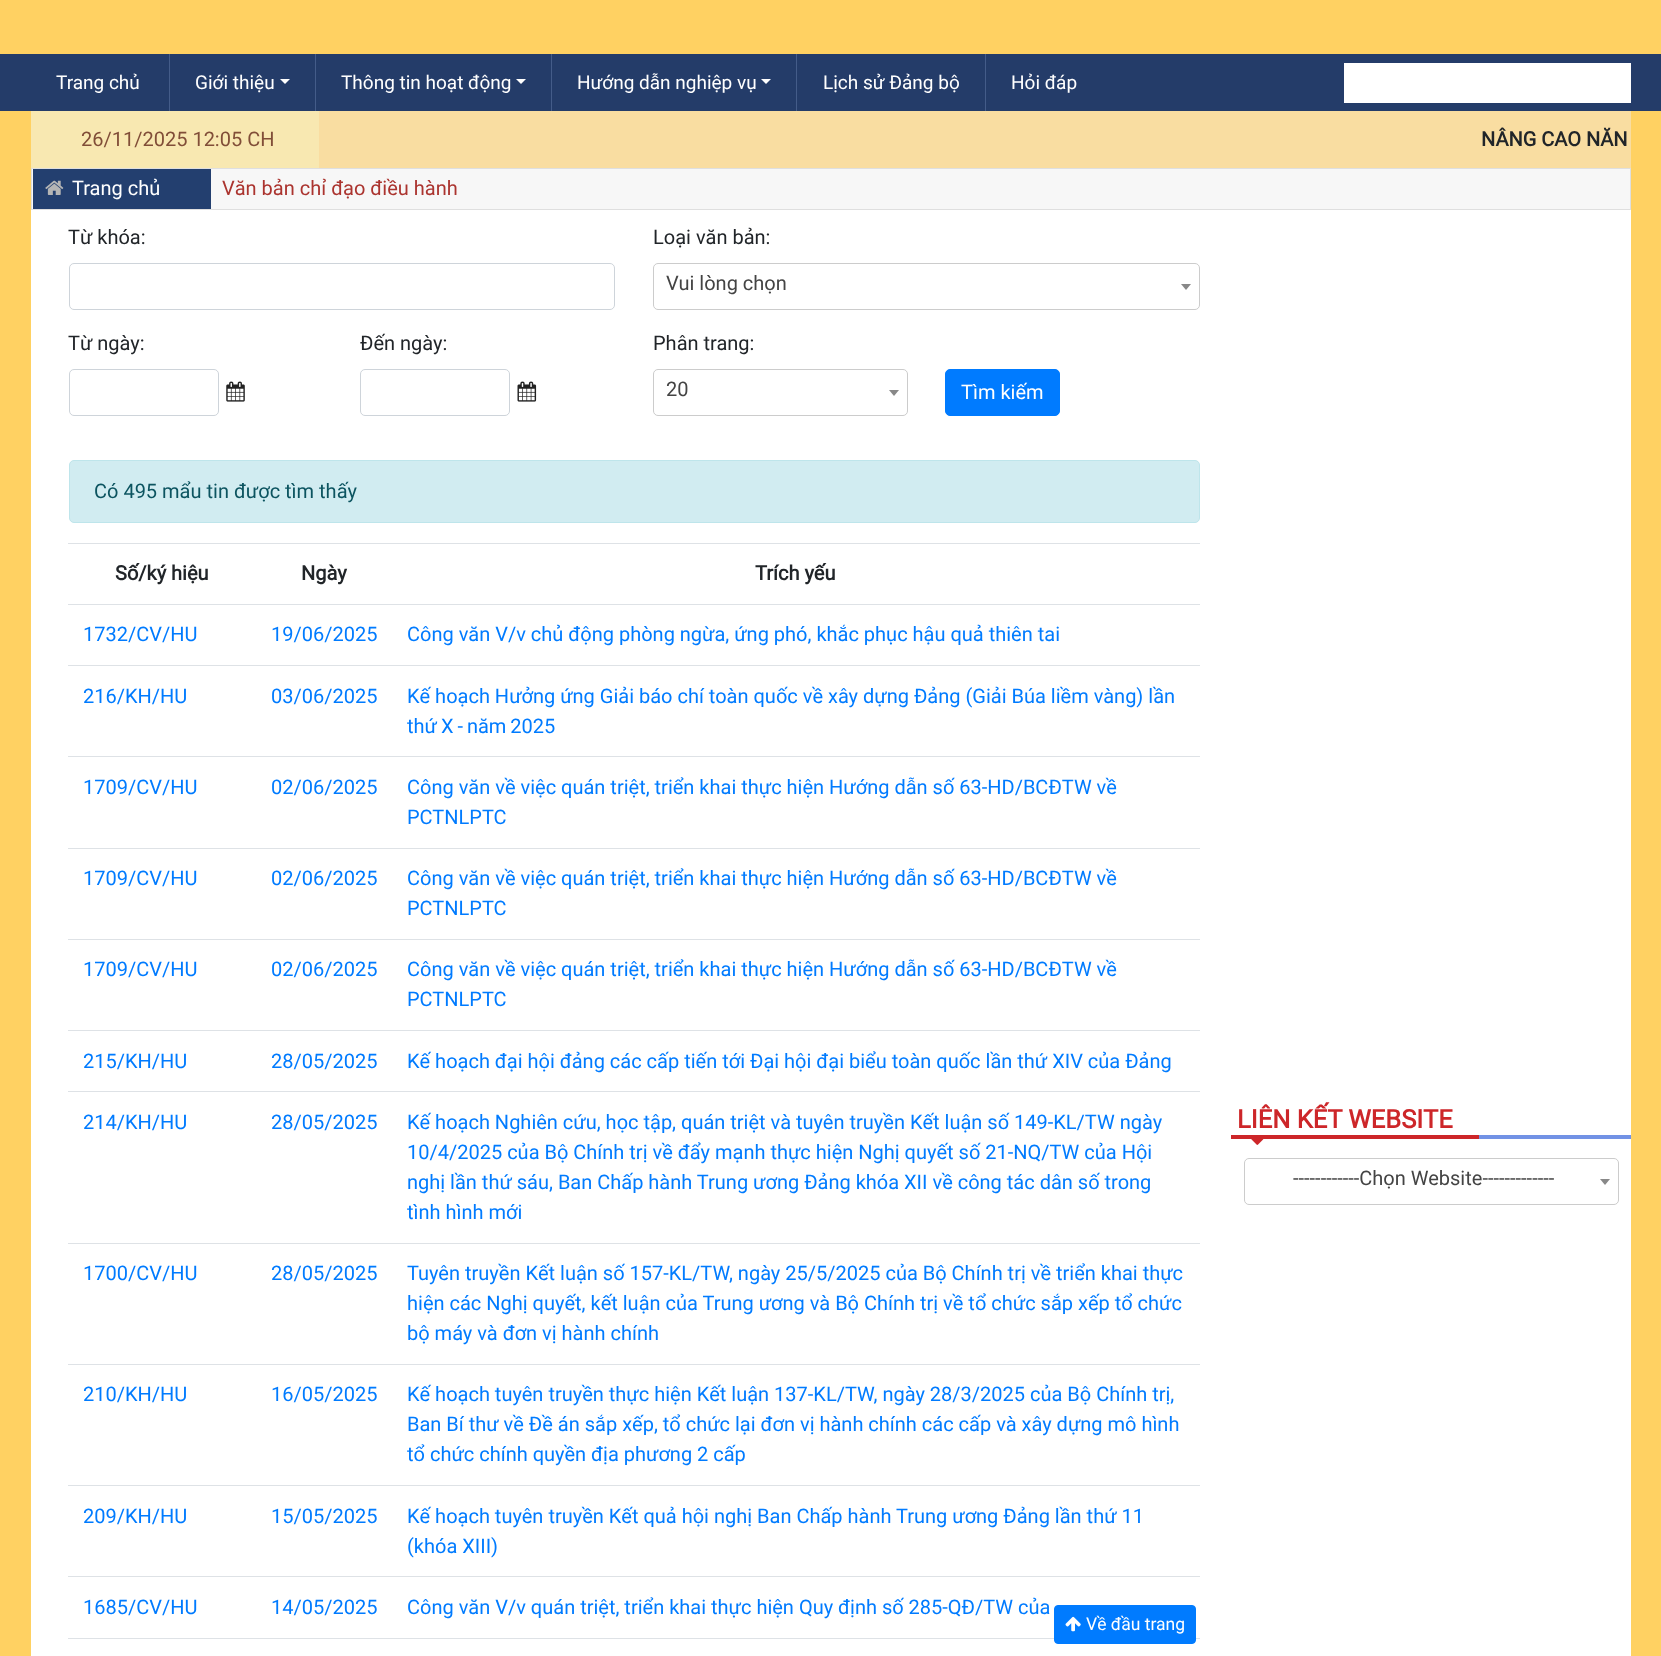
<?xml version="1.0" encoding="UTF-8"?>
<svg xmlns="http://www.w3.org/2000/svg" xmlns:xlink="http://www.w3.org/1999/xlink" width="1661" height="1656">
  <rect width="100%" height="100%" fill="#ffd162" />
  <rect y="54" width="1661" height="57" fill="#243c69" />
  <rect x="169" y="54" width="1" height="57" fill="#445c89" />
  <rect x="315" y="54" width="1" height="57" fill="#445c89" />
  <path d="M 280 79 h 10 l -5 5 z" fill="#ffffff" />
  <rect x="551" y="54" width="1" height="57" fill="#445c89" />
  <path d="M 516 79 h 10 l -5 5 z" fill="#ffffff" />
  <rect x="796" y="54" width="1" height="57" fill="#445c89" />
  <path d="M 761 79 h 10 l -5 5 z" fill="#ffffff" />
  <rect x="985" y="54" width="1" height="57" fill="#445c89" />
  <rect x="1344" y="63" width="287" height="40" fill="#ffffff" />
  <rect x="31" y="111" width="288" height="57" fill="#f8e8b1" />
  <rect x="31" y="210" width="1600" height="1446" fill="#ffffff" />
  <rect x="319" y="111" width="1312" height="57" fill="#f9dda1" />
  <rect x="31.5" y="168.5" width="1599" height="41" fill="#f7f7f7" stroke="#dfdfdf" />
  <rect x="33" y="169" width="178" height="40" fill="#233f6f" />
  <image x="45" y="180" width="19" height="15" xlink:href="image1.png" />
  <rect x="69.5" y="263.5" width="545" height="46" rx="4.5" fill="none" stroke="#ced4da" />
  <rect x="653.5" y="263.5" width="546" height="46" rx="4.5" fill="none" stroke="#cccccc" />
  <path d="M 1181 284 h 10 l -5 6 z" fill="#888888" />
  <rect x="69.5" y="369.5" width="149" height="46" rx="4.5" fill="none" stroke="#ced4da" />
  <image x="226" y="381" width="19" height="21" xlink:href="image2.png" />
  <rect x="360.5" y="369.5" width="149" height="46" rx="4.5" fill="none" stroke="#ced4da" />
  <image x="517" y="381" width="20" height="21" xlink:href="image3.png" />
  <rect x="653.5" y="369.5" width="254" height="46" rx="4.5" fill="none" stroke="#cccccc" />
  <path d="M 889 390 h 10 l -5 6 z" fill="#888888" />
  <rect x="945.5" y="369.5" width="114" height="46" rx="4.5" fill="#007bff" stroke="#007bff" />
  <rect x="69.5" y="460.5" width="1130" height="62" rx="4.5" fill="#d1ecf1" stroke="#bee5eb" />
  <rect x="68" y="543" width="1132" height="1" fill="#dee2e6" />
  <rect x="68" y="604" width="1132" height="1" fill="#dee2e6" />
  <rect x="68" y="665" width="1132" height="1" fill="#dee2e6" />
  <rect x="68" y="756" width="1132" height="1" fill="#dee2e6" />
  <rect x="68" y="848" width="1132" height="1" fill="#dee2e6" />
  <rect x="68" y="939" width="1132" height="1" fill="#dee2e6" />
  <rect x="68" y="1030" width="1132" height="1" fill="#dee2e6" />
  <rect x="68" y="1091" width="1132" height="1" fill="#dee2e6" />
  <rect x="68" y="1243" width="1132" height="1" fill="#dee2e6" />
  <rect x="68" y="1364" width="1132" height="1" fill="#dee2e6" />
  <rect x="68" y="1485" width="1132" height="1" fill="#dee2e6" />
  <rect x="68" y="1576" width="1132" height="1" fill="#dee2e6" />
  <rect x="68" y="1638" width="1132" height="1" fill="#dee2e6" />
  <rect x="1479" y="1135" width="152" height="4" fill="#7292e5" />
  <rect x="1231" y="1135" width="248" height="4" fill="#cd2629" />
  <image x="1251" y="1139" width="13" height="6" xlink:href="image4.png" />
  <rect x="1244.5" y="1158.5" width="374" height="46" rx="4.5" fill="none" stroke="#cccccc" />
  <path d="M 1600 1179 h 10 l -5 6 z" fill="#888888" />
  <rect x="1054.5" y="1605.5" width="141" height="38" rx="3.5" fill="#007bff" stroke="#007bff" />
  <image x="1065" y="1616" width="16" height="16" xlink:href="image5.png" />
  <text x="56" y="89" style="font-family: Roboto; font-size: 19px; fill: #ffffff">Trang chủ</text>
  <text x="195" y="89" style="font-family: Roboto; font-size: 19px; fill: #ffffff">Giới thiệu</text>
  <text x="341" y="89" style="font-family: Roboto; font-size: 19px; fill: #ffffff">Thông tin hoạt động</text>
  <text x="577" y="89" style="font-family: Roboto; font-size: 19px; fill: #ffffff">Hướng dẫn nghiệp vụ</text>
  <text x="823" y="89" style="font-family: Roboto; font-size: 19px; fill: #ffffff">Lịch sử Đảng bộ</text>
  <text x="1011" y="89" style="font-family: Roboto; font-size: 19px; fill: #ffffff">Hỏi đáp</text>
  <text x="81" y="146" style="font-family: Roboto; font-size: 20px; fill: #814e38">26/11/2025 12:05 CH</text>
  <text x="1481" y="146" style="font-family: Roboto; font-size: 20px; font-weight: bold; fill: #212529">NÂNG CAO NĂN</text>
  <text x="72" y="195" style="font-family: Roboto; font-size: 20px; fill: #ffffff">Trang chủ</text>
  <text x="222" y="195" style="font-family: Roboto; font-size: 20px; fill: #ab342f">Văn bản chỉ đạo điều hành</text>
  <text x="68" y="244" style="font-family: Roboto; font-size: 20px; fill: #212529">Từ khóa:</text>
  <text x="653" y="244" style="font-family: Roboto; font-size: 20px; fill: #212529">Loại văn bản:</text>
  <text x="666" y="290" style="font-family: Roboto; font-size: 20px; fill: #444444">Vui lòng chọn</text>
  <text x="68" y="350" style="font-family: Roboto; font-size: 20px; fill: #212529">Từ ngày:</text>
  <text x="360" y="350" style="font-family: Roboto; font-size: 20px; fill: #212529">Đến ngày:</text>
  <text x="653" y="350" style="font-family: Roboto; font-size: 20px; fill: #212529">Phân trang:</text>
  <text x="666" y="396" style="font-family: Roboto; font-size: 20px; fill: #444444">20</text>
  <text x="961" y="399" style="font-family: Roboto; font-size: 20px; fill: #ffffff">Tìm kiếm</text>
  <text x="94" y="498" style="font-family: Roboto; font-size: 20px; fill: #0c5460">Có 495 mẩu tin được tìm thấy</text>
  <text x="115" y="580" style="font-family: Roboto; font-size: 20px; font-weight: bold; fill: #212529">Số/ký hiệu</text>
  <text x="301" y="580" style="font-family: Roboto; font-size: 20px; font-weight: bold; fill: #212529">Ngày</text>
  <text x="755" y="580" style="font-family: Roboto; font-size: 20px; font-weight: bold; fill: #212529">Trích yếu</text>
  <text x="83" y="641" style="font-family: Roboto; font-size: 20px; fill: #007bff">1732/CV/HU</text>
  <text x="271" y="641" style="font-family: Roboto; font-size: 20px; fill: #007bff">19/06/2025</text>
  <text x="407" y="641" style="font-family: Roboto; font-size: 20px; fill: #007bff">Công văn V/v chủ động phòng ngừa, ứng phó, khắc phục hậu quả thiên tai</text>
  <text x="83" y="703" style="font-family: Roboto; font-size: 20px; fill: #007bff">216/KH/HU</text>
  <text x="271" y="703" style="font-family: Roboto; font-size: 20px; fill: #007bff">03/06/2025</text>
  <text x="407" y="703" style="font-family: Roboto; font-size: 20px; fill: #007bff">Kế hoạch Hưởng ứng Giải báo chí toàn quốc về xây dựng Đảng (Giải Búa liềm vàng) lần</text>
  <text x="407" y="733" word-spacing="-1" style="font-family: Roboto; font-size: 20px; fill: #007bff">thứ X - năm 2025</text>
  <text x="83" y="794" style="font-family: Roboto; font-size: 20px; fill: #007bff">1709/CV/HU</text>
  <text x="271" y="794" style="font-family: Roboto; font-size: 20px; fill: #007bff">02/06/2025</text>
  <text x="407" y="794" style="font-family: Roboto; font-size: 20px; fill: #007bff">Công văn về việc quán triệt, triển khai thực hiện Hướng dẫn số 63-HD/BCĐTW về</text>
  <text x="407" y="824" style="font-family: Roboto; font-size: 20px; fill: #007bff">PCTNLPTC</text>
  <text x="83" y="885" style="font-family: Roboto; font-size: 20px; fill: #007bff">1709/CV/HU</text>
  <text x="271" y="885" style="font-family: Roboto; font-size: 20px; fill: #007bff">02/06/2025</text>
  <text x="407" y="885" style="font-family: Roboto; font-size: 20px; fill: #007bff">Công văn về việc quán triệt, triển khai thực hiện Hướng dẫn số 63-HD/BCĐTW về</text>
  <text x="407" y="915" style="font-family: Roboto; font-size: 20px; fill: #007bff">PCTNLPTC</text>
  <text x="83" y="976" style="font-family: Roboto; font-size: 20px; fill: #007bff">1709/CV/HU</text>
  <text x="271" y="976" style="font-family: Roboto; font-size: 20px; fill: #007bff">02/06/2025</text>
  <text x="407" y="976" style="font-family: Roboto; font-size: 20px; fill: #007bff">Công văn về việc quán triệt, triển khai thực hiện Hướng dẫn số 63-HD/BCĐTW về</text>
  <text x="407" y="1006" style="font-family: Roboto; font-size: 20px; fill: #007bff">PCTNLPTC</text>
  <text x="83" y="1068" style="font-family: Roboto; font-size: 20px; fill: #007bff">215/KH/HU</text>
  <text x="271" y="1068" style="font-family: Roboto; font-size: 20px; fill: #007bff">28/05/2025</text>
  <text x="407" y="1068" style="font-family: Roboto; font-size: 20px; fill: #007bff">Kế hoạch đại hội đảng các cấp tiến tới Đại hội đại biểu toàn quốc lần thứ XIV của Đảng</text>
  <text x="83" y="1129" style="font-family: Roboto; font-size: 20px; fill: #007bff">214/KH/HU</text>
  <text x="271" y="1129" style="font-family: Roboto; font-size: 20px; fill: #007bff">28/05/2025</text>
  <text x="407" y="1129" style="font-family: Roboto; font-size: 20px; fill: #007bff">Kế hoạch Nghiên cứu, học tập, quán triệt và tuyên truyền Kết luận số 149-KL/TW ngày</text>
  <text x="407" y="1159" style="font-family: Roboto; font-size: 20px; fill: #007bff">10/4/2025 của Bộ Chính trị về đẩy mạnh thực hiện Nghị quyết số 21-NQ/TW của Hội</text>
  <text x="407" y="1189" style="font-family: Roboto; font-size: 20px; fill: #007bff">nghị lần thứ sáu, Ban Chấp hành Trung ương Đảng khóa XII về công tác dân số trong</text>
  <text x="407" y="1219" style="font-family: Roboto; font-size: 20px; fill: #007bff">tình hình mới</text>
  <text x="83" y="1280" style="font-family: Roboto; font-size: 20px; fill: #007bff">1700/CV/HU</text>
  <text x="271" y="1280" style="font-family: Roboto; font-size: 20px; fill: #007bff">28/05/2025</text>
  <text x="407" y="1280" style="font-family: Roboto; font-size: 20px; fill: #007bff">Tuyên truyền Kết luận số 157-KL/TW, ngày 25/5/2025 của Bộ Chính trị về triển khai thực</text>
  <text x="407" y="1310" style="font-family: Roboto; font-size: 20px; fill: #007bff">hiện các Nghị quyết, kết luận của Trung ương và Bộ Chính trị về tổ chức sắp xếp tổ chức</text>
  <text x="407" y="1340" style="font-family: Roboto; font-size: 20px; fill: #007bff">bộ máy và đơn vị hành chính</text>
  <text x="83" y="1401" style="font-family: Roboto; font-size: 20px; fill: #007bff">210/KH/HU</text>
  <text x="271" y="1401" style="font-family: Roboto; font-size: 20px; fill: #007bff">16/05/2025</text>
  <text x="407" y="1401" style="font-family: Roboto; font-size: 20px; fill: #007bff">Kế hoạch tuyên truyền thực hiện Kết luận 137-KL/TW, ngày 28/3/2025 của Bộ Chính trị,</text>
  <text x="407" y="1431" style="font-family: Roboto; font-size: 20px; fill: #007bff">Ban Bí thư về Đề án sắp xếp, tổ chức lại đơn vị hành chính các cấp và xây dựng mô hình</text>
  <text x="407" y="1461" style="font-family: Roboto; font-size: 20px; fill: #007bff">tổ chức chính quyền địa phương 2 cấp</text>
  <text x="83" y="1523" style="font-family: Roboto; font-size: 20px; fill: #007bff">209/KH/HU</text>
  <text x="271" y="1523" style="font-family: Roboto; font-size: 20px; fill: #007bff">15/05/2025</text>
  <text x="407" y="1523" style="font-family: Roboto; font-size: 20px; fill: #007bff">Kế hoạch tuyên truyền Kết quả hội nghị Ban Chấp hành Trung ương Đảng lần thứ 11</text>
  <text x="407" y="1553" style="font-family: Roboto; font-size: 20px; fill: #007bff">(khóa XIII)</text>
  <text x="83" y="1614" style="font-family: Roboto; font-size: 20px; fill: #007bff">1685/CV/HU</text>
  <text x="271" y="1614" style="font-family: Roboto; font-size: 20px; fill: #007bff">14/05/2025</text>
  <text x="407" y="1614" style="font-family: Roboto; font-size: 20px; fill: #007bff">Công văn V/v quán triệt, triển khai thực hiện Quy định số 285-QĐ/TW của</text>
  <text x="1237" y="1128" style="font-family: Roboto; font-size: 25.5px; font-weight: bold; fill: #cd2629">LIÊN KẾT WEBSITE</text>
  <text x="1293" y="1185" style="font-family: Roboto; font-size: 20px; fill: #444444">------------Chọn Website-------------</text>
  <text x="1086" y="1630" style="font-family: Roboto; font-size: 17.5px; fill: #ffffff">Về đầu trang</text>
</svg>
